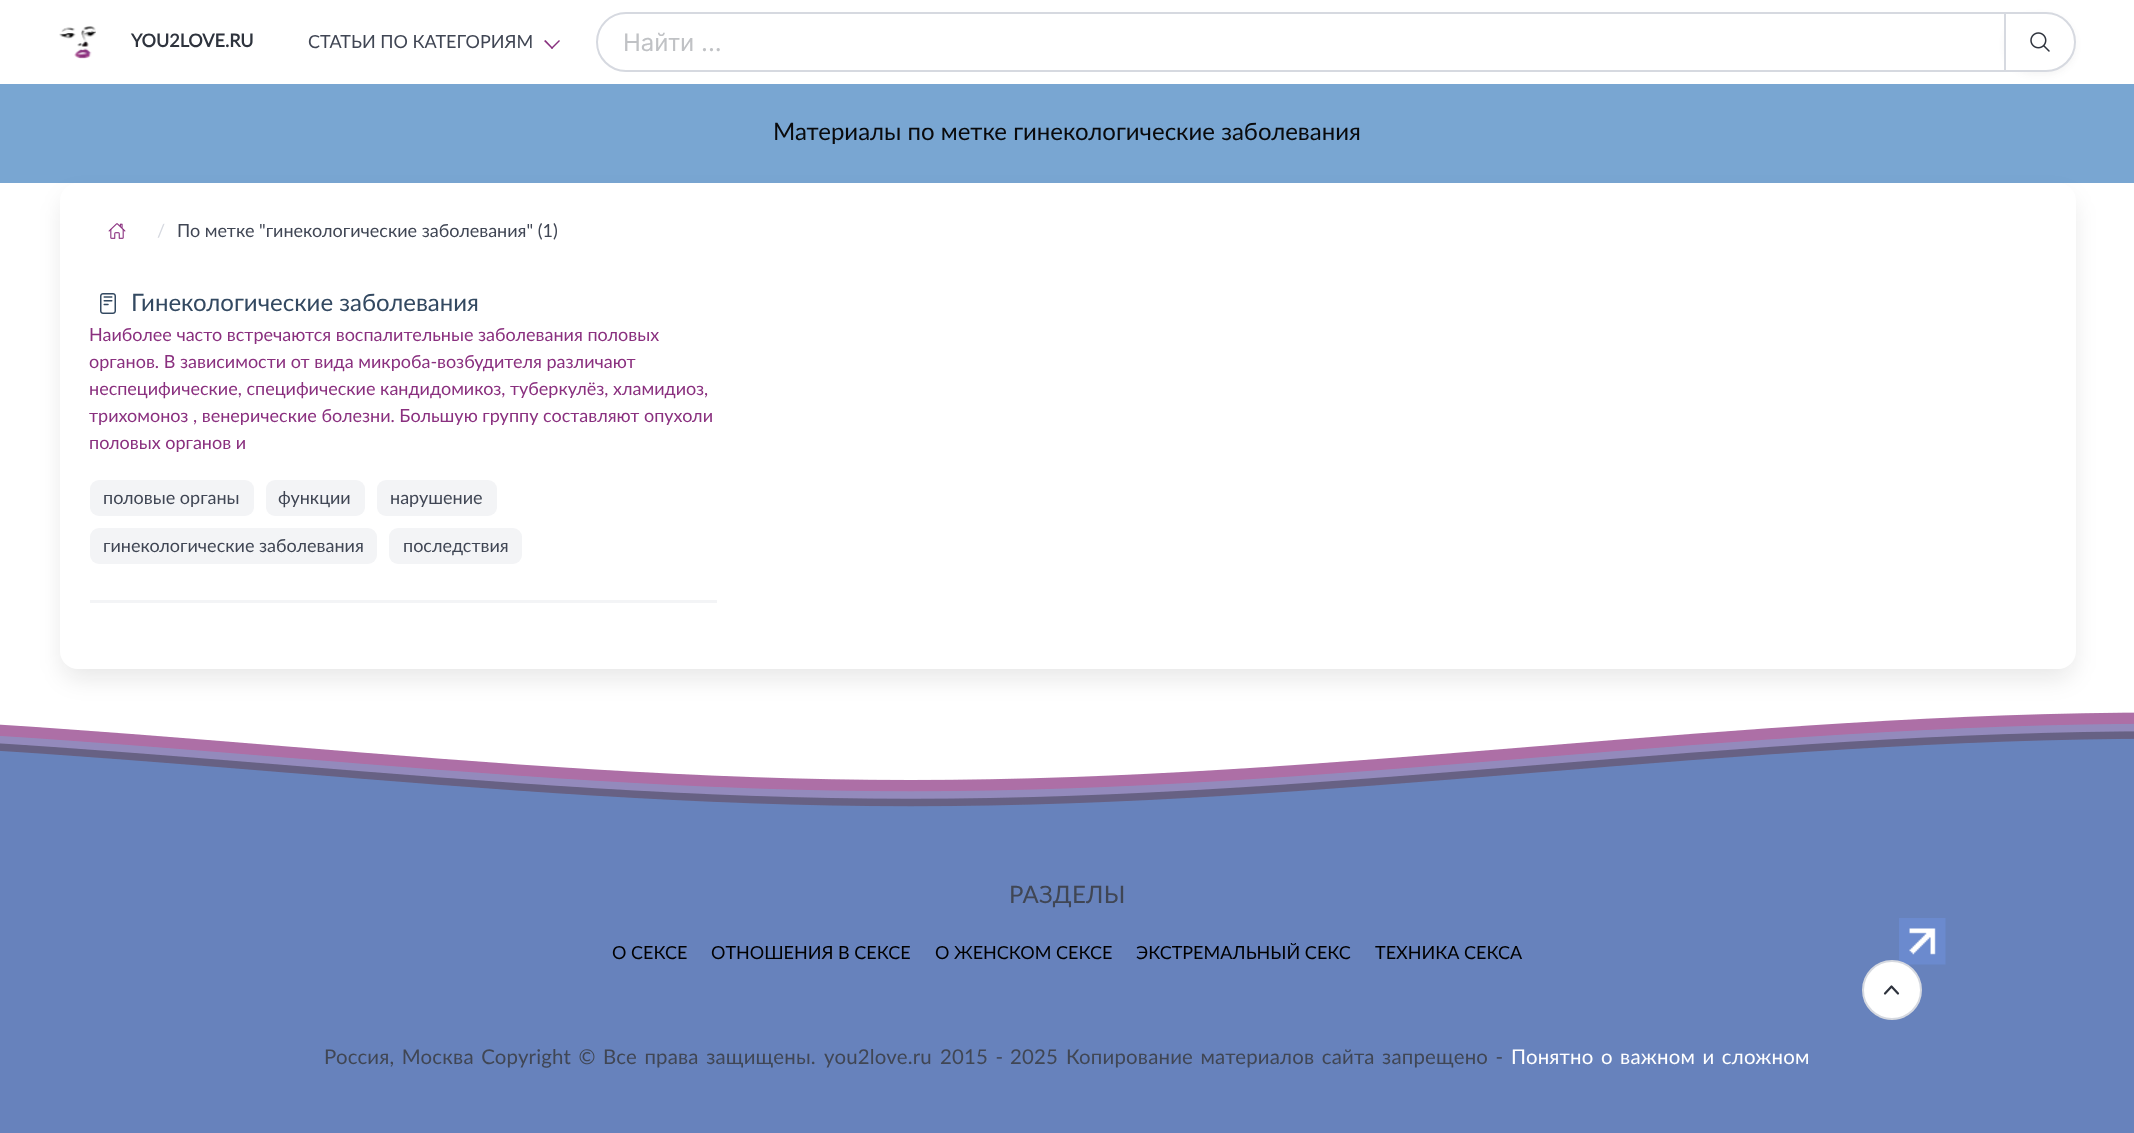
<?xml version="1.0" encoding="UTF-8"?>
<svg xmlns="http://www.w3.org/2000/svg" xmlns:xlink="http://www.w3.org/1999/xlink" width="2134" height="1133">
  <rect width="100%" height="100%" fill="#ffffff" />
  <image x="59" y="26" width="37" height="33" xlink:href="image1.png" />
  <path d="M 551 48 l 8 -8 l 1 1 l -8 8 z" fill="#88307e" />
  <path d="M 544 41 l 1.5 -1 l 7.5 8 l -1 1 z" fill="#88307e" />
  <path d="M 626 13 h 1379 v 58 h -1379 c -16 0 -29 -13 -29 -29 c 0 -16 13 -29 29 -29 z" fill="none" stroke="#d6d9e0" stroke-width="2" />
  <rect y="84" width="2134" height="99" fill="#79a6d2" />
  <rect x="2004" y="15" width="72" height="60" rx="30" fill="#333333" fill-opacity="0.05" filter="blur(3px)" />
  <path d="M 2005 13 h 41 c 16 0 29 13 29 29 c 0 16 -13 29 -29 29 h -41 z" fill="#ffffff" stroke="#d6d9e0" stroke-width="2" />
  <image x="2030" y="32" width="20" height="20" xlink:href="image2.png" />
  <rect x="63" y="198" width="2010" height="480" rx="15" fill="#090a0c" fill-opacity="0.1" filter="blur(12px)" />
  <rect x="60" y="183" width="2016" height="486" rx="18" fill="#ffffff" />
  <image x="108" y="223" width="18" height="16" xlink:href="image3.png" />
  <image x="100" y="293" width="16" height="21" xlink:href="image4.png" />
  <rect x="90" y="480" width="164" height="36" rx="9" fill="#f3f4f6" />
  <rect x="266" y="480" width="99" height="36" rx="9" fill="#f3f4f6" />
  <rect x="377" y="480" width="120" height="36" rx="9" fill="#f3f4f6" />
  <rect x="90" y="528" width="287" height="36" rx="9" fill="#f3f4f6" />
  <rect x="389" y="528" width="133" height="36" rx="9" fill="#f3f4f6" />
  <rect x="90" y="600" width="627" height="3" fill="#f3f4f6" />
  <image x="0" y="712" width="2134" height="98" xlink:href="image5.png" />
  <rect y="810" width="2134" height="323" fill="#6782bc" />
  <image x="1899" y="918" width="47" height="47" xlink:href="image6.png" />
  <circle cx="1892" cy="990" r="29" fill="#ffffff" stroke="#d6d9e0" stroke-width="2" />
  <path d="M 1885 993.5 l 6.5 -7 l 6.5 7" fill="none" stroke="#2e333d" stroke-width="2.2" stroke-linecap="round" stroke-linejoin="round" />
  <text x="131" y="47" style="font-family: Lato; font-size: 18px; font-weight: bold; fill: #2e333d">YOU2LOVE.RU</text>
  <text x="308" y="48" style="font-family: Lato; font-size: 18px; fill: #404654">СТАТЬИ ПО КАТЕГОРИЯМ</text>
  <text x="623" y="51" style="font-family: Inter; font-size: 24px; fill: #c0c2c5">Найти ...</text>
  <text x="773" y="140" style="font-family: Lato; font-size: 24px; fill: #090a0c">Материалы по метке гинекологические заболевания</text>
  <text x="157" y="237" style="font-family: Lato; font-size: 18px; fill: #d6d9e0">/</text>
  <text x="177" y="237" style="font-family: Lato; font-size: 18px; fill: #404654">По метке "гинекологические заболевания" (1)</text>
  <text x="131" y="311" style="font-family: Lato; font-size: 24px; fill: #334961">Гинекологические заболевания</text>
  <text x="89" y="341" style="font-family: Lato; font-size: 18px; fill: #8a307f">Наиболее часто встречаются воспалительные заболевания половых</text>
  <text x="89" y="368" style="font-family: Lato; font-size: 18px; fill: #8a307f">органов. В зависимости от вида микроба-возбудителя различают</text>
  <text x="89" y="395" style="font-family: Lato; font-size: 18px; fill: #8a307f">неспецифические, специфические кандидомикоз, туберкулёз, хламидиоз,</text>
  <text x="89" y="422" style="font-family: Lato; font-size: 18px; fill: #8a307f">трихомоноз , венерические болезни. Большую группу составляют опухоли</text>
  <text x="89" y="449" style="font-family: Lato; font-size: 18px; fill: #8a307f">половых органов и</text>
  <text x="103" y="504" style="font-family: Lato; font-size: 18px; fill: #404654">половые органы</text>
  <text x="278" y="504" style="font-family: Lato; font-size: 18px; fill: #404654">функции</text>
  <text x="390" y="504" style="font-family: Lato; font-size: 18px; fill: #404654">нарушение</text>
  <text x="103" y="552" style="font-family: Lato; font-size: 18px; fill: #404654">гинекологические заболевания</text>
  <text x="403" y="552" style="font-family: Lato; font-size: 18px; fill: #404654">последствия</text>
  <text x="1009" y="903" style="font-family: Lato; font-size: 24px; letter-spacing: 0.25px; fill: #404654">РАЗДЕЛЫ</text>
  <text x="612" y="959" style="font-family: Lato; font-size: 18px; fill: #000000">О СЕКСЕ</text>
  <text x="711" y="959" style="font-family: Lato; font-size: 18px; fill: #000000">ОТНОШЕНИЯ В СЕКСЕ</text>
  <text x="935" y="959" style="font-family: Lato; font-size: 18px; fill: #000000">О ЖЕНСКОМ СЕКСЕ</text>
  <text x="1136" y="959" style="font-family: Lato; font-size: 18px; fill: #000000">ЭКСТРЕМАЛЬНЫЙ СЕКС</text>
  <text x="1375" y="959" style="font-family: Lato; font-size: 18px; fill: #000000">ТЕХНИКА СЕКСА</text>
  <text x="324" y="1064" word-spacing="2" style="font-family: Lato; font-size: 20.4px; letter-spacing: 0.2px; fill: #404654">Россия, Москва Copyright © Все права защищены.</text>
  <text x="824" y="1064" style="font-family: Lato; font-size: 20.4px; letter-spacing: 0.2px; fill: #404654">you2love.ru</text>
  <text x="940" y="1064" word-spacing="2" style="font-family: Lato; font-size: 20.4px; letter-spacing: 0.2px; fill: #404654">2015 -</text>
  <text x="1010" y="1064" style="font-family: Lato; font-size: 20.4px; letter-spacing: 0.2px; fill: #404654">2025</text>
  <text x="1066" y="1064" word-spacing="2" style="font-family: Lato; font-size: 20.4px; letter-spacing: 0.2px; fill: #404654">Копирование материалов сайта запрещено -</text>
  <text x="1511" y="1064" word-spacing="2" style="font-family: Lato; font-size: 20.4px; letter-spacing: 0.2px; fill: #ffffff">Понятно о важном и сложном</text>
</svg>
